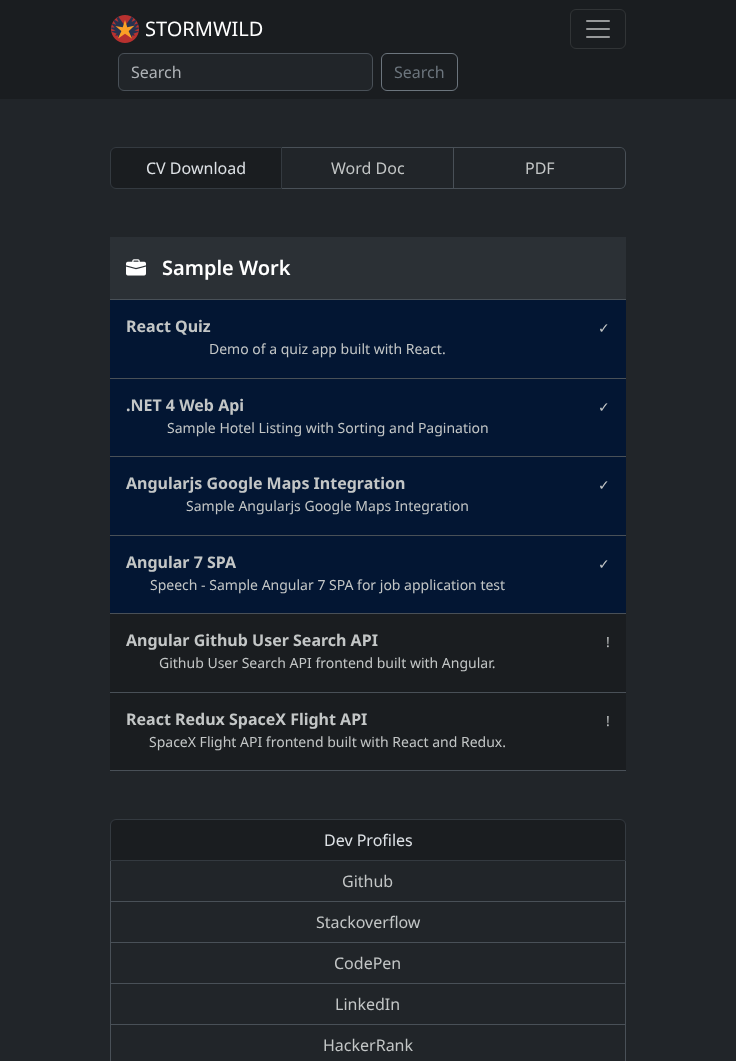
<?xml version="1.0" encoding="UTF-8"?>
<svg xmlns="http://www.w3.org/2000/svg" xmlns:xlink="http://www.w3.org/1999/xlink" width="736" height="1061">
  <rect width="100%" height="100%" fill="#212529" />
  <rect width="736" height="99" fill="#1a1d20" />
  <image x="111" y="15" width="28" height="28" xlink:href="image1.png" />
  <rect x="570.5" y="9.5" width="55" height="39" rx="5.5" fill="none" stroke="#313436" />
  <image x="586" y="20" width="24" height="18" xlink:href="image2.png" />
  <rect x="118.5" y="53.5" width="254" height="37" rx="5.5" fill="#212529" stroke="#495057" />
  <rect x="381.5" y="53.5" width="76" height="37" rx="5.5" fill="none" stroke="#6c757d" />
  <path d="M 116 147.5 h 165.5 v 41 h -165.5 c -3 0 -5.5 -2.5 -5.5 -5.5 v -30 c 0 -3 2.5 -5.5 5.5 -5.5 z" fill="#1a1d20" stroke="#343a40" />
  <rect x="282" y="147" width="172" height="1" fill="#495057" />
  <rect x="453" y="147" width="1" height="42" fill="#495057" />
  <rect x="282" y="188" width="172" height="1" fill="#495057" />
  <path d="M 454 147 h 166 c 3 0 6 3 6 6 v 30 c 0 3 -3 6 -6 6 h -166 z m 0 1 h 166 c 3 0 5 2 5 5 v 30 c 0 3 -2 5 -5 5 h -166 z" fill="#495057" fill-rule="evenodd" />
  <rect x="110" y="237" width="516" height="62" fill="#2b3035" />
  <rect x="110" y="299" width="516" height="1" fill="#495057" />
  <image x="126" y="259" width="20" height="17" xlink:href="image3.png" />
  <rect x="110" y="770" width="516" height="1" fill="#495057" />
  <rect x="110" y="300" width="516" height="78" fill="#031633" />
  <rect x="110" y="378" width="516" height="1" fill="#495057" />
  <rect x="110" y="379" width="516" height="77" fill="#031633" />
  <rect x="110" y="456" width="516" height="1" fill="#495057" />
  <rect x="110" y="457" width="516" height="78" fill="#031633" />
  <rect x="110" y="535" width="516" height="1" fill="#495057" />
  <rect x="110" y="536" width="516" height="77" fill="#031633" />
  <rect x="110" y="613" width="516" height="1" fill="#495057" />
  <rect x="110" y="614" width="516" height="78" fill="#1a1d20" />
  <rect x="110" y="692" width="516" height="1" fill="#495057" />
  <rect x="110" y="693" width="516" height="77" fill="#1a1d20" />
  <path d="M 116 819.5 h 504 c 3 0 5.5 2.5 5.5 5.5 v 35.5 h -515 v -35.5 c 0 -3 2.5 -5.5 5.5 -5.5 z" fill="#1a1d20" stroke="#343a40" />
  <rect x="625" y="861" width="1" height="164" fill="#495057" />
  <rect x="110" y="901" width="516" height="1" fill="#495057" />
  <rect x="110" y="861" width="1" height="41" fill="#495057" />
  <rect x="110" y="942" width="516" height="1" fill="#495057" />
  <rect x="110" y="902" width="1" height="41" fill="#495057" />
  <rect x="110" y="983" width="516" height="1" fill="#495057" />
  <rect x="110" y="943" width="1" height="41" fill="#495057" />
  <rect x="110" y="1024" width="516" height="1" fill="#495057" />
  <rect x="110" y="984" width="1" height="41" fill="#495057" />
  <path d="M 110 1025 h 516 v 35 c 0 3 -3 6 -6 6 h -504 c -3 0 -6 -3 -6 -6 z m 1 0 h 514 v 35 c 0 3 -2 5 -5 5 h -504 c -3 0 -5 -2 -5 -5 z" fill="#495057" fill-rule="evenodd" />
  <text x="145" y="36" style="font-family: Noto Sans; font-size: 20px; fill: #ffffff">STORMWILD</text>
  <text x="131" y="78" style="font-family: Noto Sans; font-size: 16px; fill: #afb3b7">Search</text>
  <text x="394" y="78" style="font-family: Noto Sans; font-size: 16px; fill: #6c757d">Search</text>
  <text x="146" y="174" style="font-family: Noto Sans; font-size: 16px; fill: #dee2e6">CV Download</text>
  <text x="331" y="174" style="font-family: Noto Sans; font-size: 16px; fill: #c3c6c6">Word Doc</text>
  <text x="525" y="174" style="font-family: Noto Sans; font-size: 16px; fill: #c3c6c6">PDF</text>
  <text x="162" y="275" style="font-family: Noto Sans; font-size: 20px; font-weight: 600; fill: #ffffff">Sample Work</text>
  <text x="126" y="332" style="font-family: Noto Sans; font-size: 16px; font-weight: bold; fill: #c3c6c6">React Quiz</text>
  <text x="598" y="333" style="font-family: DejaVu Sans; font-size: 14px; fill: #c3c6c6">✓</text>
  <text x="209" y="354" style="font-family: Noto Sans; font-size: 14px; fill: #c3c6c6">Demo of a quiz app built with React.</text>
  <text x="126" y="411" style="font-family: Noto Sans; font-size: 16px; font-weight: bold; fill: #c3c6c6">.NET 4 Web Api</text>
  <text x="598" y="412" style="font-family: DejaVu Sans; font-size: 14px; fill: #c3c6c6">✓</text>
  <text x="167" y="433" style="font-family: Noto Sans; font-size: 14px; fill: #c3c6c6">Sample Hotel Listing with Sorting and Pagination</text>
  <text x="126" y="489" style="font-family: Noto Sans; font-size: 16px; font-weight: bold; fill: #c3c6c6">Angularjs Google Maps Integration</text>
  <text x="598" y="490" style="font-family: DejaVu Sans; font-size: 14px; fill: #c3c6c6">✓</text>
  <text x="186" y="511" style="font-family: Noto Sans; font-size: 14px; fill: #c3c6c6">Sample Angularjs Google Maps Integration</text>
  <text x="126" y="568" style="font-family: Noto Sans; font-size: 16px; font-weight: bold; fill: #c3c6c6">Angular 7 SPA</text>
  <text x="598" y="569" style="font-family: DejaVu Sans; font-size: 14px; fill: #c3c6c6">✓</text>
  <text x="150" y="590" style="font-family: Noto Sans; font-size: 14px; fill: #c3c6c6">Speech - Sample Angular 7 SPA for job application test</text>
  <text x="126" y="646" style="font-family: Noto Sans; font-size: 16px; font-weight: bold; fill: #c3c6c6">Angular Github User Search API</text>
  <text x="606" y="647" style="font-family: Noto Sans; font-size: 14px; fill: #c3c6c6">!</text>
  <text x="159" y="668" style="font-family: Noto Sans; font-size: 14px; fill: #c3c6c6">Github User Search API frontend built with Angular.</text>
  <text x="126" y="725" style="font-family: Noto Sans; font-size: 16px; font-weight: bold; fill: #c3c6c6">React Redux SpaceX Flight API</text>
  <text x="606" y="726" style="font-family: Noto Sans; font-size: 14px; fill: #c3c6c6">!</text>
  <text x="149" y="747" style="font-family: Noto Sans; font-size: 14px; fill: #c3c6c6">SpaceX Flight API frontend built with React and Redux.</text>
  <text x="324" y="846" style="font-family: Noto Sans; font-size: 16px; fill: #dee2e6">Dev Profiles</text>
  <text x="342" y="887" style="font-family: Noto Sans; font-size: 16px; fill: #c3c6c6">Github</text>
  <text x="316" y="928" style="font-family: Noto Sans; font-size: 16px; fill: #c3c6c6">Stackoverflow</text>
  <text x="334" y="969" style="font-family: Noto Sans; font-size: 16px; fill: #c3c6c6">CodePen</text>
  <text x="335" y="1010" style="font-family: Noto Sans; font-size: 16px; fill: #c3c6c6">LinkedIn</text>
  <text x="323" y="1051" style="font-family: Noto Sans; font-size: 16px; fill: #c3c6c6">HackerRank</text>
</svg>
